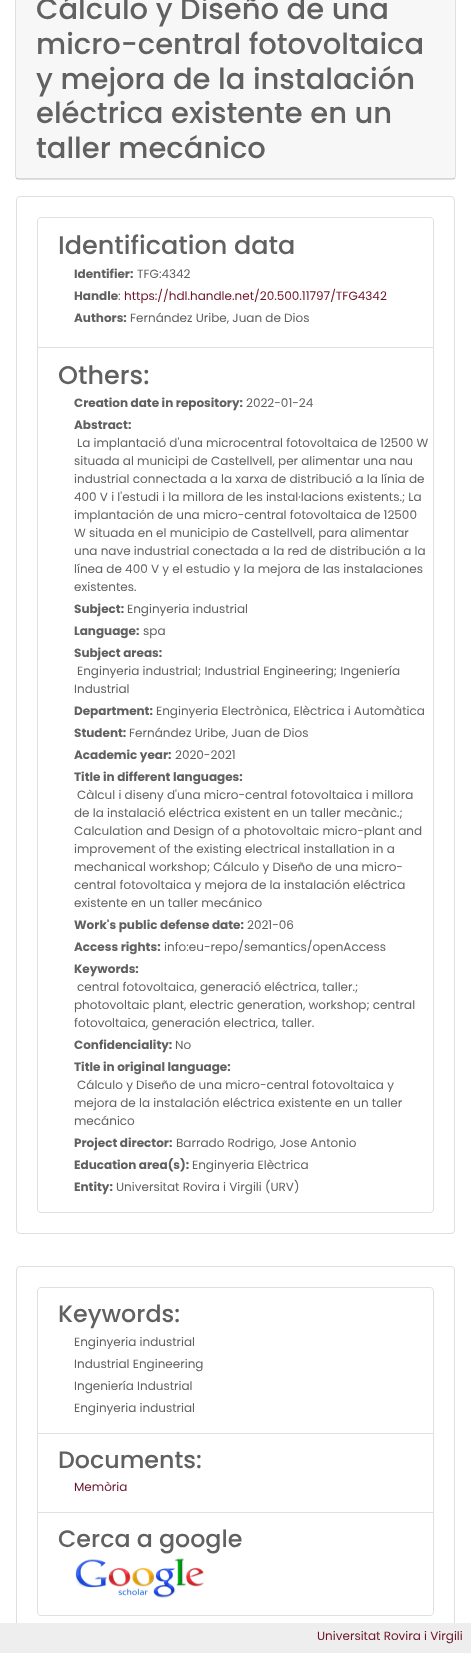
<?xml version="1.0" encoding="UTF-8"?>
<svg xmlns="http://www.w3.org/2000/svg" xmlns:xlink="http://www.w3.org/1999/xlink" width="471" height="1653">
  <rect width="100%" height="100%" fill="#ffffff" />
  <rect x="15.5" y="-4.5" width="440" height="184" rx="3.5" fill="none" stroke="#dfdfdf" />
  <rect x="16" width="439" height="179" fill="#000000" fill-opacity="0.03" />
  <rect x="16" y="178" width="439" height="1" fill="#000000" fill-opacity="0.12" />
  <rect x="16.5" y="196.5" width="438" height="1037" rx="3.5" fill="none" stroke="#dfdfdf" />
  <path d="M 41 217.5 h 389 c 2 0 3.5 1.5 3.5 3.5 v 126.5 h -396 v -126.5 c 0 -2 1.5 -3.5 3.5 -3.5 z" fill="none" stroke="#dfdfdf" />
  <path d="M 37 348 h 397 v 861 c 0 2 -2 4 -4 4 h -389 c -2 0 -4 -2 -4 -4 z m 1 0 h 395 v 861 c 0 2 -1 3 -3 3 h -389 c -2 0 -3 -1 -3 -3 z" fill="#dfdfdf" fill-rule="evenodd" />
  <rect x="16.5" y="1266.5" width="438" height="370" rx="3.5" fill="none" stroke="#dfdfdf" />
  <path d="M 41 1287.5 h 389 c 2 0 3.5 1.5 3.5 3.5 v 142.5 h -396 v -142.5 c 0 -2 1.5 -3.5 3.5 -3.5 z" fill="none" stroke="#dfdfdf" />
  <path d="M 434 1434 v 79 l -1 -1 v -78 z" fill="#dfdfdf" />
  <path d="M 434 1513 h -397 l 1 -1 h 395 z" fill="#000000" fill-opacity="0.12" />
  <path d="M 37 1513 v -79 h 1 v 78 z" fill="#000000" fill-opacity="0.12" />
  <path d="M 37 1513 h 397 v 99 c 0 2 -2 4 -4 4 h -389 c -2 0 -4 -2 -4 -4 z m 1 0 h 395 v 99 c 0 2 -1 3 -3 3 h -389 c -2 0 -3 -1 -3 -3 z" fill="#dfdfdf" fill-rule="evenodd" />
  <image x="75" y="1558" width="129" height="40" xlink:href="image1.png" />
  <rect y="1623" width="471" height="30" fill="#eeeeee" />
  <text x="36" y="19" style="font-family: Poppins; font-size: 29px; font-weight: 500; fill: #616161">Cálculo y Diseño de una</text>
  <text x="36" y="54" style="font-family: Poppins; font-size: 29px; font-weight: 500; fill: #616161">micro-central fotovoltaica</text>
  <text x="36" y="89" style="font-family: Poppins; font-size: 29px; font-weight: 500; fill: #616161">y mejora de la instalación</text>
  <text x="36" y="123" style="font-family: Poppins; font-size: 29px; font-weight: 500; fill: #616161">eléctrica existente en un</text>
  <text x="36" y="158" style="font-family: Poppins; font-size: 29px; font-weight: 500; fill: #616161">taller mecánico</text>
  <text x="58" y="254" style="font-family: Poppins; font-size: 25.5px; font-weight: 500; fill: #616161">Identification data</text>
  <text x="74" y="278" style="font-family: Poppins; font-size: 12px; font-weight: bold; fill: #616161">Identifier:</text>
  <text x="137" y="278" style="font-family: Poppins; font-size: 12px; fill: #616161">TFG:4342</text>
  <text x="74" y="300" style="font-family: Poppins; font-size: 12px; font-weight: bold; fill: #616161">Handle</text>
  <text x="118" y="300" style="font-family: Poppins; font-size: 12px; fill: #616161">:</text>
  <text x="124" y="300" style="font-family: Poppins; font-size: 12px; fill: #6b1229">https://hdl.handle.net/20.500.11797/TFG4342</text>
  <text x="74" y="322" style="font-family: Poppins; font-size: 12px; font-weight: bold; fill: #616161">Authors:</text>
  <text x="130" y="322" style="font-family: Poppins; font-size: 12px; fill: #616161">Fernández Uribe, Juan de Dios</text>
  <text x="58" y="384" style="font-family: Poppins; font-size: 25.5px; font-weight: 500; fill: #616161">Others:</text>
  <text x="74" y="407" style="font-family: Poppins; font-size: 12px; font-weight: bold; fill: #616161">Creation date in repository:</text>
  <text x="246" y="407" style="font-family: Poppins; font-size: 12px; fill: #616161">2022-01-24</text>
  <text x="74" y="429" style="font-family: Poppins; font-size: 12px; font-weight: bold; fill: #616161">Abstract:</text>
  <text x="77" y="447" style="font-family: Poppins; font-size: 12px; fill: #616161">La implantació d'una microcentral fotovoltaica de 12500 W</text>
  <text x="74" y="465" style="font-family: Poppins; font-size: 12px; fill: #616161">situada al municipi de Castellvell, per alimentar una nau</text>
  <text x="74" y="483" style="font-family: Poppins; font-size: 12px; fill: #616161">industrial connectada a la xarxa de distribució a la línia de</text>
  <text x="74" y="501" style="font-family: Poppins; font-size: 12px; fill: #616161">400 V i l'estudi i la millora de les instal·lacions existents.; La</text>
  <text x="74" y="519" style="font-family: Poppins; font-size: 12px; fill: #616161">implantación de una micro-central fotovoltaica de 12500</text>
  <text x="74" y="537" style="font-family: Poppins; font-size: 12px; fill: #616161">W situada en el municipio de Castellvell, para alimentar</text>
  <text x="74" y="555" style="font-family: Poppins; font-size: 12px; fill: #616161">una nave industrial conectada a la red de distribución a la</text>
  <text x="74" y="573" style="font-family: Poppins; font-size: 12px; fill: #616161">línea de 400 V y el estudio y la mejora de las instalaciones</text>
  <text x="74" y="591" style="font-family: Poppins; font-size: 12px; fill: #616161">existentes.</text>
  <text x="74" y="613" style="font-family: Poppins; font-size: 12px; font-weight: bold; fill: #616161">Subject:</text>
  <text x="127" y="613" style="font-family: Poppins; font-size: 12px; fill: #616161">Enginyeria industrial</text>
  <text x="74" y="635" style="font-family: Poppins; font-size: 12px; font-weight: bold; fill: #616161">Language:</text>
  <text x="143" y="635" style="font-family: Poppins; font-size: 12px; fill: #616161">spa</text>
  <text x="74" y="657" style="font-family: Poppins; font-size: 12px; font-weight: bold; fill: #616161">Subject areas:</text>
  <text x="77" y="675" style="font-family: Poppins; font-size: 12px; fill: #616161">Enginyeria industrial; Industrial Engineering; Ingeniería</text>
  <text x="74" y="693" style="font-family: Poppins; font-size: 12px; fill: #616161">Industrial</text>
  <text x="74" y="715" style="font-family: Poppins; font-size: 12px; font-weight: bold; fill: #616161">Department:</text>
  <text x="156" y="715" style="font-family: Poppins; font-size: 12px; fill: #616161">Enginyeria Electrònica, Elèctrica i Automàtica</text>
  <text x="74" y="737" style="font-family: Poppins; font-size: 12px; font-weight: bold; fill: #616161">Student:</text>
  <text x="129" y="737" style="font-family: Poppins; font-size: 12px; fill: #616161">Fernández Uribe, Juan de Dios</text>
  <text x="74" y="759" style="font-family: Poppins; font-size: 12px; font-weight: bold; fill: #616161">Academic year:</text>
  <text x="175" y="759" style="font-family: Poppins; font-size: 12px; fill: #616161">2020-2021</text>
  <text x="74" y="781" style="font-family: Poppins; font-size: 12px; font-weight: bold; fill: #616161">Title in different languages:</text>
  <text x="77" y="799" style="font-family: Poppins; font-size: 12px; fill: #616161">Càlcul i diseny d'una micro-central fotovoltaica i millora</text>
  <text x="74" y="817" style="font-family: Poppins; font-size: 12px; fill: #616161">de la instalació eléctrica existent en un taller mecànic.;</text>
  <text x="74" y="835" style="font-family: Poppins; font-size: 12px; fill: #616161">Calculation and Design of a photovoltaic micro-plant and</text>
  <text x="74" y="853" style="font-family: Poppins; font-size: 12px; fill: #616161">improvement of the existing electrical installation in a</text>
  <text x="74" y="871" style="font-family: Poppins; font-size: 12px; fill: #616161">mechanical workshop; Cálculo y Diseño de una micro-</text>
  <text x="74" y="889" style="font-family: Poppins; font-size: 12px; fill: #616161">central fotovoltaica y mejora de la instalación eléctrica</text>
  <text x="74" y="907" style="font-family: Poppins; font-size: 12px; fill: #616161">existente en un taller mecánico</text>
  <text x="74" y="929" style="font-family: Poppins; font-size: 12px; font-weight: bold; fill: #616161">Work's public defense date:</text>
  <text x="247" y="929" style="font-family: Poppins; font-size: 12px; fill: #616161">2021-06</text>
  <text x="74" y="951" style="font-family: Poppins; font-size: 12px; font-weight: bold; fill: #616161">Access rights:</text>
  <text x="164" y="951" style="font-family: Poppins; font-size: 12px; fill: #616161">info:eu-repo/semantics/openAccess</text>
  <text x="74" y="973" style="font-family: Poppins; font-size: 12px; font-weight: bold; fill: #616161">Keywords:</text>
  <text x="77" y="991" style="font-family: Poppins; font-size: 12px; fill: #616161">central fotovoltaica, generació eléctrica, taller.;</text>
  <text x="74" y="1009" style="font-family: Poppins; font-size: 12px; fill: #616161">photovoltaic plant, electric generation, workshop; central</text>
  <text x="74" y="1027" style="font-family: Poppins; font-size: 12px; fill: #616161">fotovoltaica, generación electrica, taller.</text>
  <text x="74" y="1049" style="font-family: Poppins; font-size: 12px; font-weight: bold; fill: #616161">Confidenciality:</text>
  <text x="175" y="1049" style="font-family: Poppins; font-size: 12px; fill: #616161">No</text>
  <text x="74" y="1071" style="font-family: Poppins; font-size: 12px; font-weight: bold; fill: #616161">Title in original language:</text>
  <text x="77" y="1089" style="font-family: Poppins; font-size: 12px; fill: #616161">Cálculo y Diseño de una micro-central fotovoltaica y</text>
  <text x="74" y="1107" style="font-family: Poppins; font-size: 12px; fill: #616161">mejora de la instalación eléctrica existente en un taller</text>
  <text x="74" y="1125" style="font-family: Poppins; font-size: 12px; fill: #616161">mecánico</text>
  <text x="74" y="1147" style="font-family: Poppins; font-size: 12px; font-weight: bold; fill: #616161">Project director:</text>
  <text x="176" y="1147" style="font-family: Poppins; font-size: 12px; fill: #616161">Barrado Rodrigo, Jose Antonio</text>
  <text x="74" y="1169" style="font-family: Poppins; font-size: 12px; font-weight: bold; fill: #616161">Education area(s):</text>
  <text x="192" y="1169" style="font-family: Poppins; font-size: 12px; fill: #616161">Enginyeria Elèctrica</text>
  <text x="74" y="1191" style="font-family: Poppins; font-size: 12px; font-weight: bold; fill: #616161">Entity:</text>
  <text x="116" y="1191" style="font-family: Poppins; font-size: 12px; fill: #616161">Universitat Rovira i Virgili (URV)</text>
  <text x="58" y="1322" style="font-family: Poppins; font-size: 23.75px; font-weight: 500; fill: #616161">Keywords:</text>
  <text x="74" y="1346" style="font-family: Poppins; font-size: 12px; fill: #616161">Enginyeria industrial</text>
  <text x="74" y="1368" style="font-family: Poppins; font-size: 12px; fill: #616161">Industrial Engineering</text>
  <text x="74" y="1390" style="font-family: Poppins; font-size: 12px; fill: #616161">Ingeniería Industrial</text>
  <text x="74" y="1412" style="font-family: Poppins; font-size: 12px; fill: #616161">Enginyeria industrial</text>
  <text x="58" y="1468" style="font-family: Poppins; font-size: 23.75px; font-weight: 500; fill: #616161">Documents:</text>
  <text x="74" y="1491" style="font-family: Poppins; font-size: 12px; fill: #6b1229">Memòria</text>
  <text x="58" y="1547" style="font-family: Poppins; font-size: 23.75px; font-weight: 500; fill: #616161">Cerca a google</text>
  <text x="317" y="1640" style="font-family: Poppins; font-size: 12px; fill: #6b1229">Universitat Rovira i Virgili</text>
</svg>
